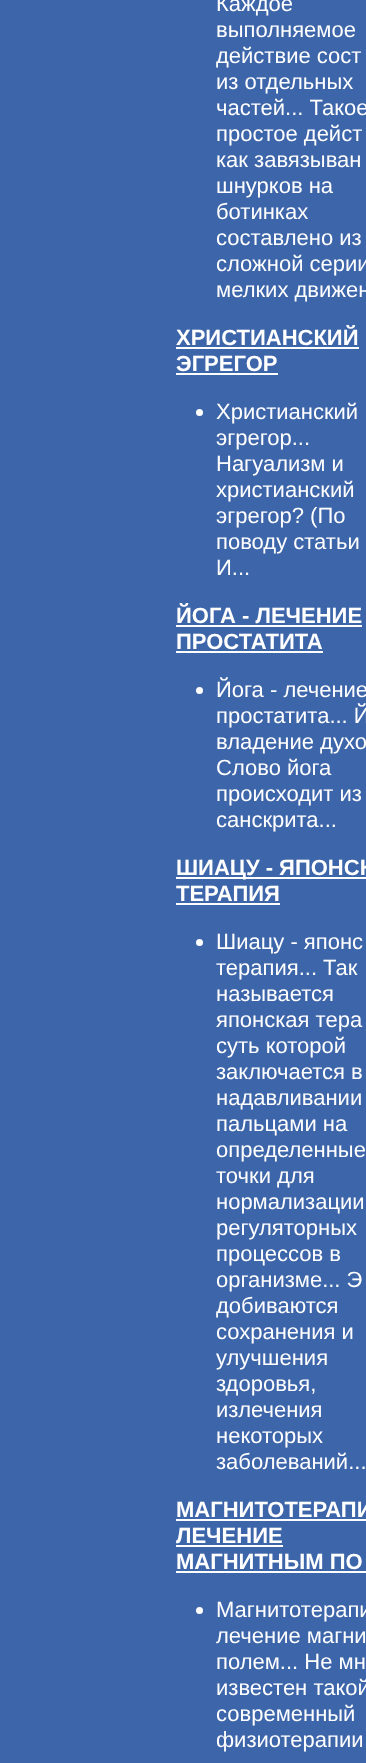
<?xml version="1.0" encoding="UTF-8"?>
<svg xmlns="http://www.w3.org/2000/svg" xmlns:xlink="http://www.w3.org/1999/xlink" width="366" height="1763">
  <rect width="100%" height="100%" fill="#3d65aa" />
  <rect x="176" y="347" width="183" height="2" fill="#ffffff" />
  <rect x="176" y="373" width="102" height="2" fill="#ffffff" />
  <circle cx="199.5" cy="412.5" r="3.5" fill="#ffffff" />
  <rect x="176" y="625" width="186" height="2" fill="#ffffff" />
  <rect x="176" y="651" width="147" height="2" fill="#ffffff" />
  <circle cx="199.5" cy="690.5" r="3.5" fill="#ffffff" />
  <rect x="176" y="877" width="190" height="2" fill="#ffffff" />
  <rect x="176" y="903" width="104" height="2" fill="#ffffff" />
  <circle cx="199.5" cy="942.5" r="3.5" fill="#ffffff" />
  <rect x="176" y="1519" width="190" height="2" fill="#ffffff" />
  <rect x="176" y="1545" width="107" height="2" fill="#ffffff" />
  <rect x="176" y="1571" width="190" height="2" fill="#ffffff" />
  <circle cx="199.5" cy="1610.5" r="3.5" fill="#ffffff" />
  <text x="216" y="11" style="font-family: Liberation Sans; font-size: 22px; fill: #ffffff">Каждое</text>
  <text x="216" y="37" style="font-family: Liberation Sans; font-size: 22px; fill: #ffffff">выполняемое</text>
  <text x="216" y="63" style="font-family: Liberation Sans; font-size: 22px; fill: #ffffff">действие сост</text>
  <text x="216" y="89" style="font-family: Liberation Sans; font-size: 22px; fill: #ffffff">из отдельных</text>
  <text x="216" y="115" style="font-family: Liberation Sans; font-size: 22px; fill: #ffffff">частей... Такое</text>
  <text x="216" y="141" style="font-family: Liberation Sans; font-size: 22px; fill: #ffffff">простое дейст</text>
  <text x="216" y="167" style="font-family: Liberation Sans; font-size: 22px; fill: #ffffff">как завязыван</text>
  <text x="216" y="193" style="font-family: Liberation Sans; font-size: 22px; fill: #ffffff">шнурков на</text>
  <text x="216" y="219" style="font-family: Liberation Sans; font-size: 22px; fill: #ffffff">ботинках</text>
  <text x="216" y="245" style="font-family: Liberation Sans; font-size: 22px; fill: #ffffff">составлено из</text>
  <text x="216" y="271" style="font-family: Liberation Sans; font-size: 22px; fill: #ffffff">сложной серии</text>
  <text x="216" y="297" style="font-family: Liberation Sans; font-size: 22px; fill: #ffffff">мелких движен</text>
  <text x="176" y="345" style="font-family: Liberation Sans; font-size: 22px; font-weight: bold; fill: #ffffff">ХРИСТИАНСКИЙ</text>
  <text x="176" y="371" style="font-family: Liberation Sans; font-size: 22px; font-weight: bold; fill: #ffffff">ЭГРЕГОР</text>
  <text x="216" y="419" style="font-family: Liberation Sans; font-size: 22px; fill: #ffffff">Христианский</text>
  <text x="216" y="445" style="font-family: Liberation Sans; font-size: 22px; fill: #ffffff">эгрегор...</text>
  <text x="216" y="471" style="font-family: Liberation Sans; font-size: 22px; fill: #ffffff">Нагуализм и</text>
  <text x="216" y="497" style="font-family: Liberation Sans; font-size: 22px; fill: #ffffff">христианский</text>
  <text x="216" y="523" style="font-family: Liberation Sans; font-size: 22px; fill: #ffffff">эгрегор? (По</text>
  <text x="216" y="549" style="font-family: Liberation Sans; font-size: 22px; fill: #ffffff">поводу статьи</text>
  <text x="216" y="575" style="font-family: Liberation Sans; font-size: 22px; fill: #ffffff">И...</text>
  <text x="176" y="623" style="font-family: Liberation Sans; font-size: 22px; font-weight: bold; fill: #ffffff">ЙОГА - ЛЕЧЕНИЕ</text>
  <text x="176" y="649" style="font-family: Liberation Sans; font-size: 22px; font-weight: bold; fill: #ffffff">ПРОСТАТИТА</text>
  <text x="216" y="697" style="font-family: Liberation Sans; font-size: 22px; fill: #ffffff">Йога - лечение</text>
  <text x="216" y="723" style="font-family: Liberation Sans; font-size: 22px; fill: #ffffff">простатита... Й</text>
  <text x="216" y="749" style="font-family: Liberation Sans; font-size: 22px; fill: #ffffff">владение духо</text>
  <text x="216" y="775" style="font-family: Liberation Sans; font-size: 22px; fill: #ffffff">Слово йога</text>
  <text x="216" y="801" style="font-family: Liberation Sans; font-size: 22px; fill: #ffffff">происходит из</text>
  <text x="216" y="827" style="font-family: Liberation Sans; font-size: 22px; fill: #ffffff">санскрита...</text>
  <text x="176" y="875" style="font-family: Liberation Sans; font-size: 22px; font-weight: bold; fill: #ffffff">ШИАЦУ - ЯПОНСК</text>
  <text x="176" y="901" style="font-family: Liberation Sans; font-size: 22px; font-weight: bold; fill: #ffffff">ТЕРАПИЯ</text>
  <text x="216" y="949" style="font-family: Liberation Sans; font-size: 22px; fill: #ffffff">Шиацу - японс</text>
  <text x="216" y="975" style="font-family: Liberation Sans; font-size: 22px; fill: #ffffff">терапия... Так</text>
  <text x="216" y="1001" style="font-family: Liberation Sans; font-size: 22px; fill: #ffffff">называется</text>
  <text x="216" y="1027" style="font-family: Liberation Sans; font-size: 22px; fill: #ffffff">японская тера</text>
  <text x="216" y="1053" style="font-family: Liberation Sans; font-size: 22px; fill: #ffffff">суть которой</text>
  <text x="216" y="1079" style="font-family: Liberation Sans; font-size: 22px; fill: #ffffff">заключается в</text>
  <text x="216" y="1105" style="font-family: Liberation Sans; font-size: 22px; fill: #ffffff">надавливании</text>
  <text x="216" y="1131" style="font-family: Liberation Sans; font-size: 22px; fill: #ffffff">пальцами на</text>
  <text x="216" y="1157" style="font-family: Liberation Sans; font-size: 22px; fill: #ffffff">определенные</text>
  <text x="216" y="1183" style="font-family: Liberation Sans; font-size: 22px; fill: #ffffff">точки для</text>
  <text x="216" y="1209" style="font-family: Liberation Sans; font-size: 22px; fill: #ffffff">нормализации</text>
  <text x="216" y="1235" style="font-family: Liberation Sans; font-size: 22px; fill: #ffffff">регуляторных</text>
  <text x="216" y="1261" style="font-family: Liberation Sans; font-size: 22px; fill: #ffffff">процессов в</text>
  <text x="216" y="1287" style="font-family: Liberation Sans; font-size: 22px; fill: #ffffff">организме... Э</text>
  <text x="216" y="1313" style="font-family: Liberation Sans; font-size: 22px; fill: #ffffff">добиваются</text>
  <text x="216" y="1339" style="font-family: Liberation Sans; font-size: 22px; fill: #ffffff">сохранения и</text>
  <text x="216" y="1365" style="font-family: Liberation Sans; font-size: 22px; fill: #ffffff">улучшения</text>
  <text x="216" y="1391" style="font-family: Liberation Sans; font-size: 22px; fill: #ffffff">здоровья,</text>
  <text x="216" y="1417" style="font-family: Liberation Sans; font-size: 22px; fill: #ffffff">излечения</text>
  <text x="216" y="1443" style="font-family: Liberation Sans; font-size: 22px; fill: #ffffff">некоторых</text>
  <text x="216" y="1469" style="font-family: Liberation Sans; font-size: 22px; fill: #ffffff">заболеваний...</text>
  <text x="176" y="1517" style="font-family: Liberation Sans; font-size: 22px; font-weight: bold; fill: #ffffff">МАГНИТОТЕРАПИ</text>
  <text x="176" y="1543" style="font-family: Liberation Sans; font-size: 22px; font-weight: bold; fill: #ffffff">ЛЕЧЕНИЕ</text>
  <text x="176" y="1569" style="font-family: Liberation Sans; font-size: 22px; font-weight: bold; fill: #ffffff">МАГНИТНЫМ ПО</text>
  <text x="216" y="1617" style="font-family: Liberation Sans; font-size: 22px; fill: #ffffff">Магнитотерапи</text>
  <text x="216" y="1643" style="font-family: Liberation Sans; font-size: 22px; fill: #ffffff">лечение магни</text>
  <text x="216" y="1669" style="font-family: Liberation Sans; font-size: 22px; fill: #ffffff">полем... Не мн</text>
  <text x="216" y="1695" style="font-family: Liberation Sans; font-size: 22px; fill: #ffffff">известен такой</text>
  <text x="216" y="1721" style="font-family: Liberation Sans; font-size: 22px; fill: #ffffff">современный</text>
  <text x="216" y="1747" style="font-family: Liberation Sans; font-size: 22px; fill: #ffffff">физиотерапии</text>
</svg>
